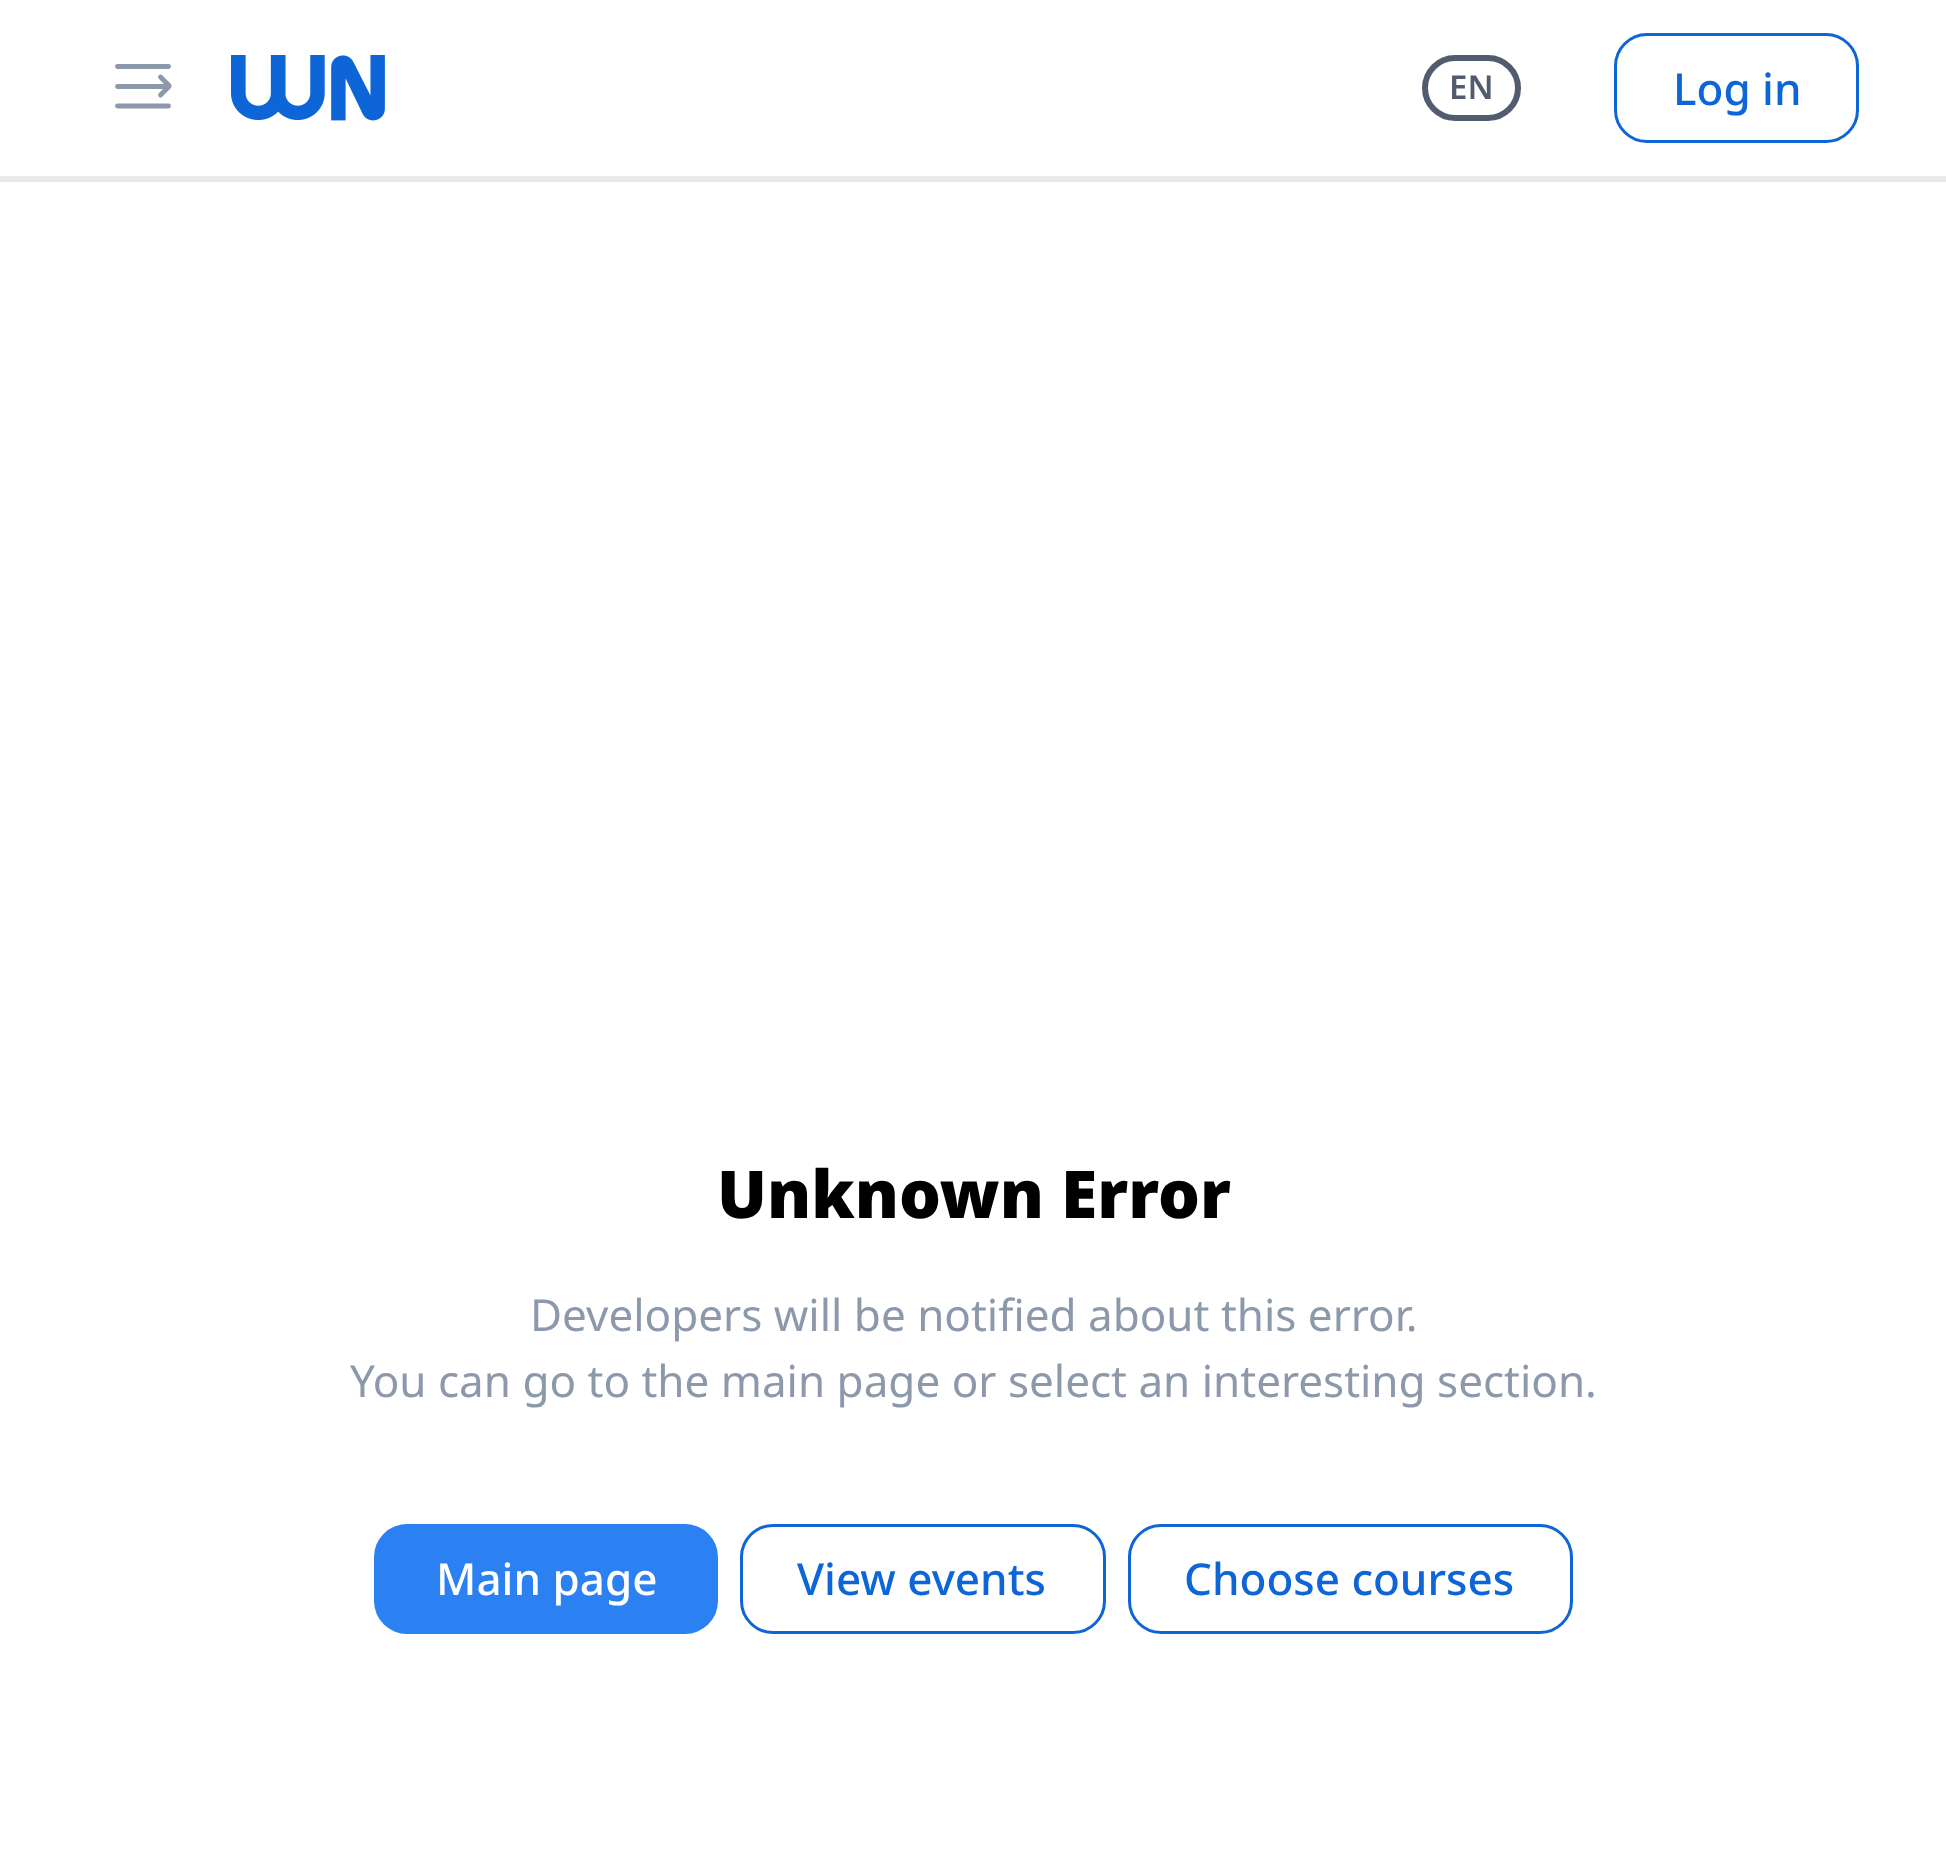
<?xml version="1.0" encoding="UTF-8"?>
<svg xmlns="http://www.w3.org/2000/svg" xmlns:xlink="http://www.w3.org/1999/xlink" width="1946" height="1875">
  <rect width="100%" height="100%" fill="#e8ebee" />
  <rect width="1946" height="176" fill="#ffffff" />
  <path d="M 168.5 66.5 h -51 m 0 39.5 h 51 m -51 -19.5 h 51 m -8 -9.5 l 8.5 8.5 m 0 1 l -8.5 8.5" fill="none" stroke="#8c99ab" stroke-width="4.9" stroke-linecap="round" />
  <image x="231" y="55" width="154" height="66" xlink:href="image1.png" />
  <rect x="1425" y="58" width="93" height="60" rx="30" fill="none" stroke="#515d6e" stroke-width="6" />
  <rect x="1615.5" y="34.5" width="242" height="107" rx="31.5" fill="none" stroke="#0d65d8" stroke-width="3" />
  <rect y="182" width="1946" height="1693" fill="#ffffff" />
  <rect x="374" y="1524" width="344" height="110" rx="33" fill="#2b81f2" />
  <rect x="741.5" y="1525.5" width="363" height="107" rx="31.5" fill="none" stroke="#0d65d8" stroke-width="3" />
  <rect x="1129.5" y="1525.5" width="442" height="107" rx="31.5" fill="none" stroke="#0d65d8" stroke-width="3" />
  <text x="1449" y="99" style="font-family: Noto Sans; font-size: 33px; font-weight: 600; fill: #515d6e">EN</text>
  <text x="1673" y="105" style="font-family: Noto Sans; font-size: 44px; font-weight: 500; fill: #0d65d8">Log in</text>
  <text x="717" y="1218" style="font-family: Noto Sans; font-size: 66px; font-weight: 900; fill: #000000">Unknown Error</text>
  <text x="530" y="1331" style="font-family: Noto Sans; font-size: 44px; fill: #8c99ab">Developers will be notified about this error.</text>
  <text x="350" y="1397" style="font-family: Noto Sans; font-size: 44px; fill: #8c99ab">You can go to the main page or select an interesting section.</text>
  <text x="436" y="1595" style="font-family: Noto Sans; font-size: 44px; font-weight: 500; fill: #ffffff">Main page</text>
  <text x="797" y="1595" style="font-family: Noto Sans; font-size: 44px; font-weight: 500; fill: #0d65d8">View events</text>
  <text x="1184" y="1595" style="font-family: Noto Sans; font-size: 44px; font-weight: 500; fill: #0d65d8">Choose courses</text>
</svg>
